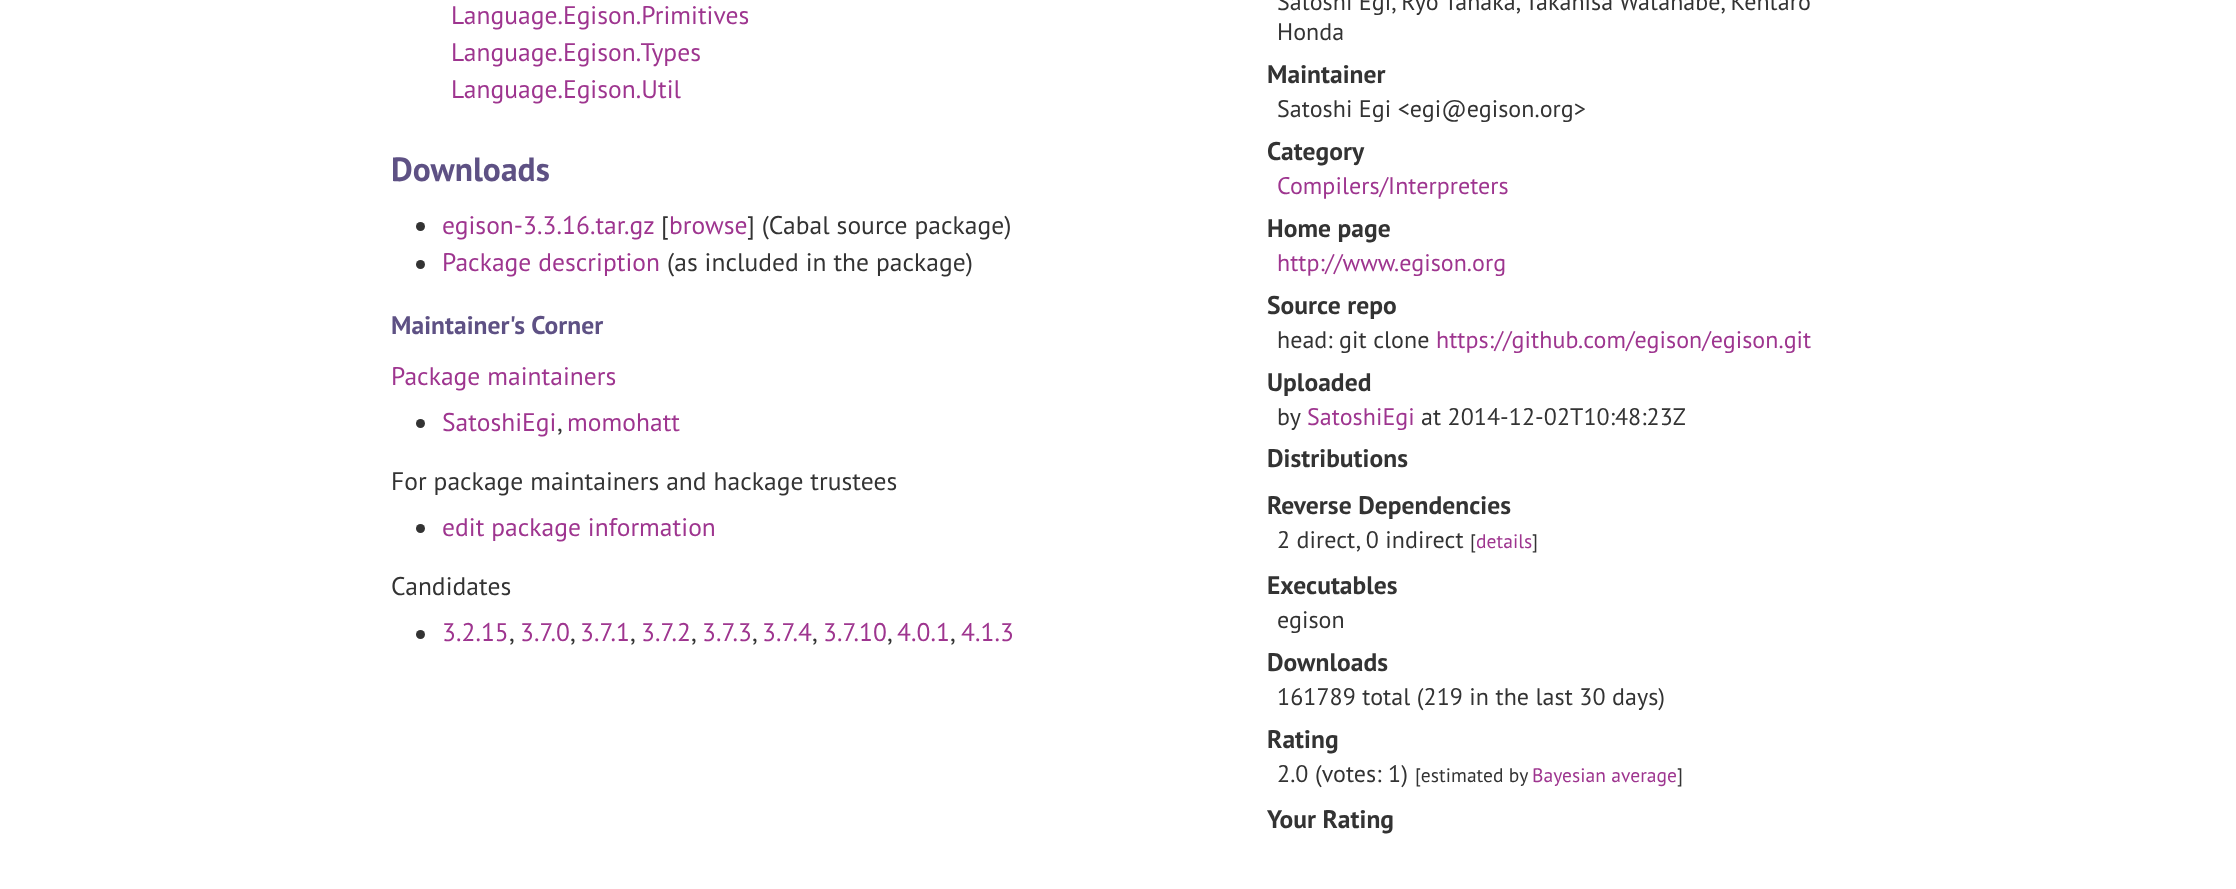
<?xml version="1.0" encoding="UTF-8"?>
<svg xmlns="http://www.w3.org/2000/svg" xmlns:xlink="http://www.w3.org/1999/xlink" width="2236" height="889">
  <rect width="100%" height="100%" fill="#ffffff" />
  <circle cx="420.5" cy="226.5" r="4.5" fill="#333333" />
  <circle cx="420.5" cy="264.5" r="4.5" fill="#333333" />
  <circle cx="420.5" cy="423.5" r="4.5" fill="#333333" />
  <circle cx="420.5" cy="528.5" r="4.5" fill="#333333" />
  <circle cx="420.5" cy="634.5" r="4.5" fill="#333333" />
  <text x="451" y="24" style="font-family: PT Sans; font-size: 25.5px; letter-spacing: 0.05px; fill: #9e358f">Language.Egison.Primitives</text>
  <text x="451" y="61" style="font-family: PT Sans; font-size: 25.5px; letter-spacing: 0.05px; fill: #9e358f">Language.Egison.Types</text>
  <text x="451" y="98" style="font-family: PT Sans; font-size: 25.5px; letter-spacing: 0.05px; fill: #9e358f">Language.Egison.Util</text>
  <text x="391" y="181" style="font-family: PT Sans; font-size: 33.5px; font-weight: bold; letter-spacing: 0.05px; fill: #5e5184">Downloads</text>
  <text x="442" y="234" style="font-family: PT Sans; font-size: 25.5px; letter-spacing: 0.05px; fill: #9e358f">egison-3.3.16.tar.gz</text>
  <text x="661" y="234" style="font-family: PT Sans; font-size: 25.5px; letter-spacing: 0.05px; fill: #333333">[</text>
  <text x="669" y="234" style="font-family: PT Sans; font-size: 25.5px; letter-spacing: 0.05px; fill: #9e358f">browse</text>
  <text x="747" y="234" style="font-family: PT Sans; font-size: 25.5px; letter-spacing: 0.05px; fill: #333333">] (Cabal source package)</text>
  <text x="442" y="271" style="font-family: PT Sans; font-size: 25.5px; letter-spacing: 0.05px; fill: #9e358f">Package description</text>
  <text x="667" y="271" style="font-family: PT Sans; font-size: 25.5px; letter-spacing: 0.05px; fill: #333333">(as included in the package)</text>
  <text x="391" y="334" style="font-family: PT Sans; font-size: 25.5px; font-weight: bold; letter-spacing: 0.05px; fill: #5e5184">Maintainer's Corner</text>
  <text x="391" y="385" style="font-family: PT Sans; font-size: 25.5px; letter-spacing: 0.05px; fill: #9e358f">Package maintainers</text>
  <text x="442" y="431" style="font-family: PT Sans; font-size: 25.5px; letter-spacing: 0.05px; fill: #9e358f">SatoshiEgi</text>
  <text x="567" y="431" style="font-family: PT Sans; font-size: 25.5px; letter-spacing: 0.05px; fill: #9e358f">momohatt</text>
  <text x="557" y="431" style="font-family: PT Sans; font-size: 25.5px; letter-spacing: 0.05px; fill: #333333">,</text>
  <text x="391" y="490" style="font-family: PT Sans; font-size: 25.5px; letter-spacing: 0.05px; fill: #333333">For package maintainers and hackage trustees</text>
  <text x="442" y="536" style="font-family: PT Sans; font-size: 25.5px; letter-spacing: 0.05px; fill: #9e358f">edit package information</text>
  <text x="391" y="595" style="font-family: PT Sans; font-size: 25.5px; letter-spacing: 0.05px; fill: #333333">Candidates</text>
  <text x="442" y="641" style="font-family: PT Sans; font-size: 25.5px; letter-spacing: 0.05px; fill: #9e358f">3.2.15</text>
  <text x="520" y="641" style="font-family: PT Sans; font-size: 25.5px; letter-spacing: 0.05px; fill: #9e358f">3.7.0</text>
  <text x="580" y="641" style="font-family: PT Sans; font-size: 25.5px; letter-spacing: 0.05px; fill: #9e358f">3.7.1</text>
  <text x="641" y="641" style="font-family: PT Sans; font-size: 25.5px; letter-spacing: 0.05px; fill: #9e358f">3.7.2</text>
  <text x="702" y="641" style="font-family: PT Sans; font-size: 25.5px; letter-spacing: 0.05px; fill: #9e358f">3.7.3</text>
  <text x="762" y="641" style="font-family: PT Sans; font-size: 25.5px; letter-spacing: 0.05px; fill: #9e358f">3.7.4</text>
  <text x="823" y="641" style="font-family: PT Sans; font-size: 25.5px; letter-spacing: 0.05px; fill: #9e358f">3.7.10</text>
  <text x="897" y="641" style="font-family: PT Sans; font-size: 25.5px; letter-spacing: 0.05px; fill: #9e358f">4.0.1</text>
  <text x="961" y="641" style="font-family: PT Sans; font-size: 25.5px; letter-spacing: 0.05px; fill: #9e358f">4.1.3</text>
  <text x="509" y="641" style="font-family: PT Sans; font-size: 25.5px; letter-spacing: 0.05px; fill: #333333">,</text>
  <text x="570" y="641" style="font-family: PT Sans; font-size: 25.5px; letter-spacing: 0.05px; fill: #333333">,</text>
  <text x="630" y="641" style="font-family: PT Sans; font-size: 25.5px; letter-spacing: 0.05px; fill: #333333">,</text>
  <text x="691" y="641" style="font-family: PT Sans; font-size: 25.5px; letter-spacing: 0.05px; fill: #333333">,</text>
  <text x="752" y="641" style="font-family: PT Sans; font-size: 25.5px; letter-spacing: 0.05px; fill: #333333">,</text>
  <text x="812" y="641" style="font-family: PT Sans; font-size: 25.5px; letter-spacing: 0.05px; fill: #333333">,</text>
  <text x="887" y="641" style="font-family: PT Sans; font-size: 25.5px; letter-spacing: 0.05px; fill: #333333">,</text>
  <text x="950" y="641" style="font-family: PT Sans; font-size: 25.5px; letter-spacing: 0.05px; fill: #333333">,</text>
  <text x="1277" y="10" style="font-family: PT Sans; font-size: 24px; letter-spacing: 0.05px; fill: #333333">Satoshi Egi, Ryo Tanaka, Takahisa Watanabe, Kentaro</text>
  <text x="1277" y="40" style="font-family: PT Sans; font-size: 24px; letter-spacing: 0.05px; fill: #333333">Honda</text>
  <text x="1267" y="83" style="font-family: PT Sans; font-size: 25.5px; font-weight: bold; letter-spacing: 0.05px; fill: #333333">Maintainer</text>
  <text x="1277" y="117" style="font-family: PT Sans; font-size: 24px; letter-spacing: 0.05px; fill: #333333">Satoshi Egi &lt;egi@egison.org&gt;</text>
  <text x="1267" y="160" style="font-family: PT Sans; font-size: 25.5px; font-weight: bold; letter-spacing: 0.05px; fill: #333333">Category</text>
  <text x="1277" y="194" style="font-family: PT Sans; font-size: 24px; letter-spacing: 0.05px; fill: #9e358f">Compilers/Interpreters</text>
  <text x="1267" y="237" style="font-family: PT Sans; font-size: 25.5px; font-weight: bold; letter-spacing: 0.05px; fill: #333333">Home page</text>
  <text x="1277" y="271" style="font-family: PT Sans; font-size: 24px; letter-spacing: 0.05px; fill: #9e358f">http://www.egison.org</text>
  <text x="1267" y="314" style="font-family: PT Sans; font-size: 25.5px; font-weight: bold; letter-spacing: 0.05px; fill: #333333">Source repo</text>
  <text x="1277" y="348" style="font-family: PT Sans; font-size: 24px; letter-spacing: 0.05px; fill: #333333">head: git clone</text>
  <text x="1436" y="348" style="font-family: PT Sans; font-size: 24px; letter-spacing: 0.05px; fill: #9e358f">https://github.com/egison/egison.git</text>
  <text x="1267" y="391" style="font-family: PT Sans; font-size: 25.5px; font-weight: bold; letter-spacing: 0.05px; fill: #333333">Uploaded</text>
  <text x="1277" y="425" style="font-family: PT Sans; font-size: 24px; letter-spacing: 0.05px; fill: #333333">by</text>
  <text x="1307" y="425" style="font-family: PT Sans; font-size: 24px; letter-spacing: 0.05px; fill: #9e358f">SatoshiEgi</text>
  <text x="1421" y="425" style="font-family: PT Sans; font-size: 24px; letter-spacing: 0.05px; fill: #333333">at 2014-12-02T10:48:23Z</text>
  <text x="1267" y="467" style="font-family: PT Sans; font-size: 25.5px; font-weight: bold; letter-spacing: 0.05px; fill: #333333">Distributions</text>
  <text x="1267" y="514" style="font-family: PT Sans; font-size: 25.5px; font-weight: bold; letter-spacing: 0.05px; fill: #333333">Reverse Dependencies</text>
  <text x="1277" y="548" style="font-family: PT Sans; font-size: 24px; letter-spacing: 0.05px; fill: #333333">2 direct, 0 indirect</text>
  <text x="1470" y="548" style="font-family: PT Sans; font-size: 19.5px; letter-spacing: 0.05px; fill: #333333">[</text>
  <text x="1476" y="548" style="font-family: PT Sans; font-size: 19.5px; letter-spacing: 0.05px; fill: #9e358f">details</text>
  <text x="1532" y="548" style="font-family: PT Sans; font-size: 19.5px; letter-spacing: 0.05px; fill: #333333">]</text>
  <text x="1267" y="594" style="font-family: PT Sans; font-size: 25.5px; font-weight: bold; letter-spacing: 0.05px; fill: #333333">Executables</text>
  <text x="1277" y="628" style="font-family: PT Sans; font-size: 24px; letter-spacing: 0.05px; fill: #333333">egison</text>
  <text x="1267" y="671" style="font-family: PT Sans; font-size: 25.5px; font-weight: bold; letter-spacing: 0.05px; fill: #333333">Downloads</text>
  <text x="1277" y="705" style="font-family: PT Sans; font-size: 24px; letter-spacing: 0.05px; fill: #333333">161789 total (219 in the last 30 days)</text>
  <text x="1267" y="748" style="font-family: PT Sans; font-size: 25.5px; font-weight: bold; letter-spacing: 0.05px; fill: #333333">Rating</text>
  <text x="1277" y="782" style="font-family: PT Sans; font-size: 24px; letter-spacing: 0.05px; fill: #333333">2.0 (votes: 1)</text>
  <text x="1415" y="782" style="font-family: PT Sans; font-size: 19.5px; letter-spacing: 0.05px; fill: #333333">[estimated by</text>
  <text x="1532" y="782" style="font-family: PT Sans; font-size: 19.5px; letter-spacing: 0.05px; fill: #9e358f">Bayesian average</text>
  <text x="1677" y="782" style="font-family: PT Sans; font-size: 19.5px; letter-spacing: 0.05px; fill: #333333">]</text>
  <text x="1267" y="828" style="font-family: PT Sans; font-size: 25.5px; font-weight: bold; letter-spacing: 0.05px; fill: #333333">Your Rating</text>
</svg>
